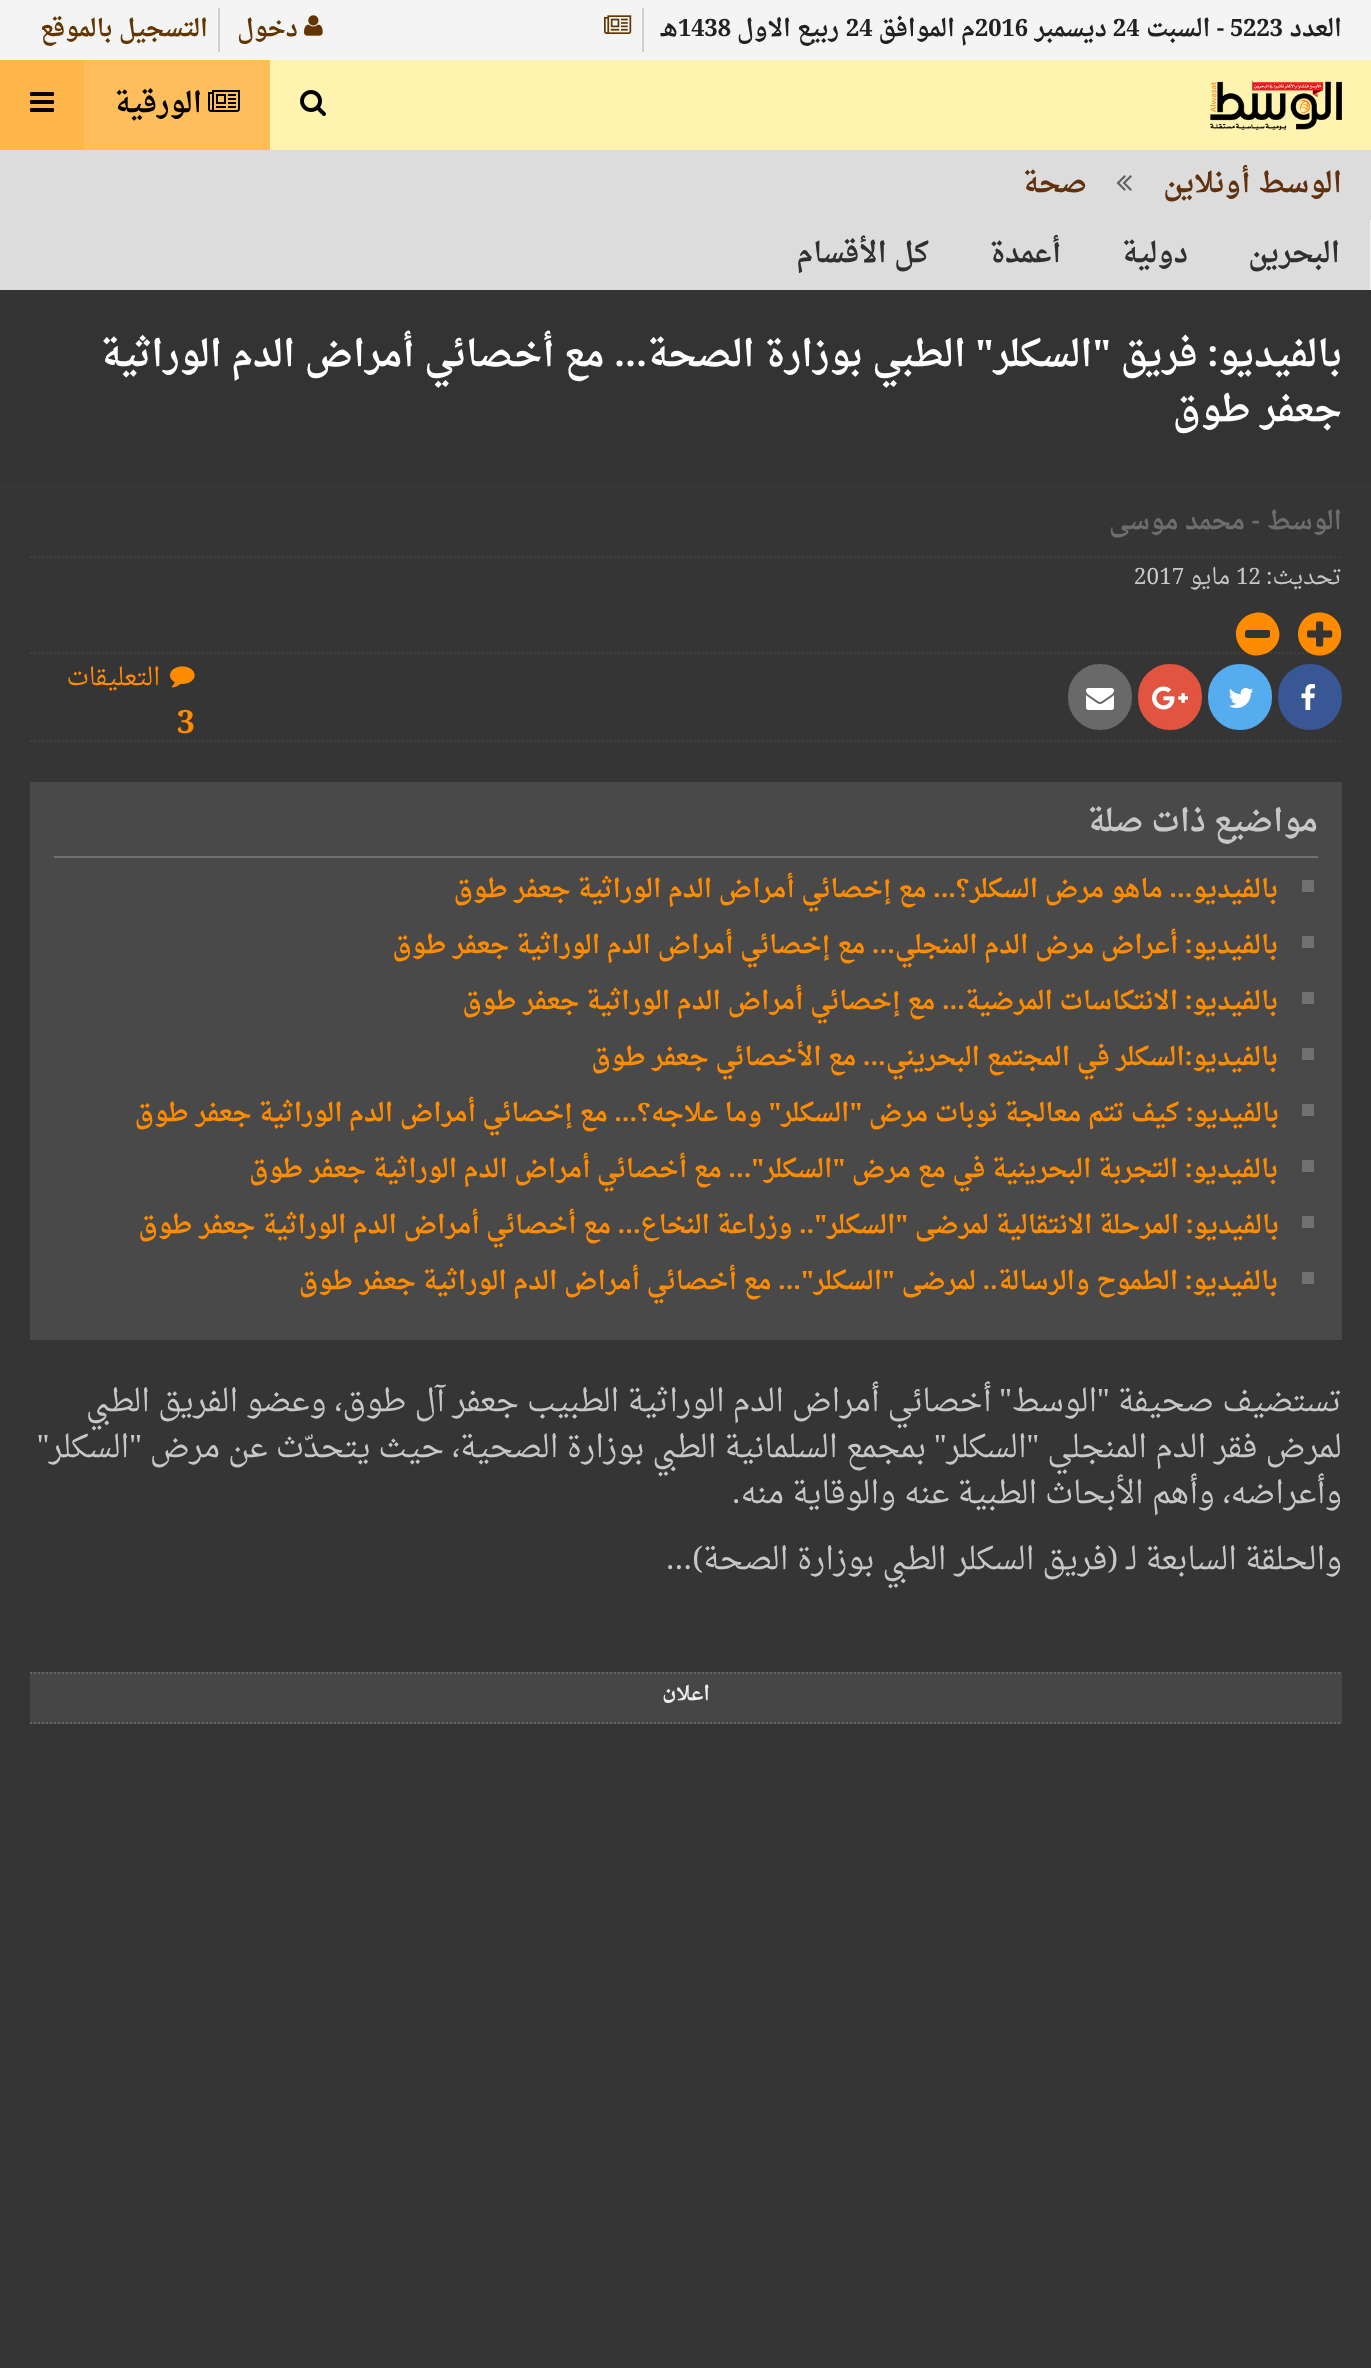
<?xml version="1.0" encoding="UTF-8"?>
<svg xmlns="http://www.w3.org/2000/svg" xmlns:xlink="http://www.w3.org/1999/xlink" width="1371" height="2368">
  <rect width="100%" height="100%" fill="#f4f4f4" />
  <rect x="642" y="8" width="2" height="44" fill="#cecece" />
  <image x="604" y="15" width="28" height="19" xlink:href="image1.png" />
  <image x="304" y="15" width="19" height="21" xlink:href="image2.png" />
  <rect x="218" y="8" width="2" height="44" fill="#cecece" />
  <rect x="270" y="60" width="1101" height="90" fill="#fff3b0" />
  <image x="1210" y="80" width="132" height="50" xlink:href="image3.png" />
  <image x="300" y="90" width="26" height="26" xlink:href="image4.png" />
  <rect x="84" y="60" width="186" height="90" fill="#ffbe5b" />
  <image x="208" y="90" width="32" height="22" xlink:href="image5.png" />
  <rect y="60" width="84" height="90" fill="#ffb74c" />
  <image x="30" y="92" width="24" height="20" xlink:href="image6.png" />
  <rect y="150" width="1371" height="140" fill="#dcdcdc" />
  <image x="1116" y="175" width="16" height="16" xlink:href="image7.png" />
  <rect x="1370" y="220" width="1" height="70" fill="#f5f5f5" />
  <rect y="290" width="1371" height="192" fill="#333333" />
  <rect y="482" width="1371" height="1886" fill="#353535" />
  <path d="M 30 557 h 1312" fill="none" stroke="#404040" stroke-width="2" stroke-dasharray="2 2" />
  <path d="M 30 653 h 1312" fill="none" stroke="#404040" stroke-width="2" stroke-dasharray="2 2" />
  <image x="1298" y="612" width="44" height="44" xlink:href="image8.png" />
  <path d="M 1270 636 c 0 -6 1 -6 -5 -6 h -15 c -5 0 -5 0 -5 6 c 0 2 4 2 5 2 h 15 c 1 0 5 0 5 -2 z m 6 -13 c 15 25 -23 46 -37 22 c -14 -25 23 -46 37 -22 z" fill="#ff8c00" />
  <path d="M 30 741 h 1312" fill="none" stroke="#404040" stroke-width="2" stroke-dasharray="2 2" />
  <rect x="1279" y="665" width="62" height="64" rx="31" fill="#3a5795" stroke="#3a5795" stroke-width="2" />
  <image x="1301" y="684" width="14" height="26" xlink:href="image9.png" />
  <rect x="1209" y="665" width="62" height="64" rx="31" fill="#55acee" stroke="#55acee" stroke-width="2" />
  <image x="1228" y="688" width="26" height="20" xlink:href="image10.png" />
  <rect x="1139" y="665" width="62" height="64" rx="31" fill="#e15440" stroke="#e15440" stroke-width="2" />
  <image x="1152" y="686" width="36" height="24" xlink:href="image11.png" />
  <rect x="1069" y="665" width="62" height="64" rx="31" fill="#696969" stroke="#696969" stroke-width="2" />
  <image x="1086" y="688" width="28" height="22" xlink:href="image12.png" />
  <image x="170" y="666" width="25" height="22" xlink:href="image13.png" />
  <rect x="30" y="782" width="1312" height="558" fill="#4a4949" />
  <rect x="54" y="856" width="1264" height="2" fill="#717171" />
  <rect x="1302" y="880" width="12" height="12" fill="#717171" />
  <rect x="1302" y="936" width="12" height="12" fill="#717171" />
  <rect x="1302" y="992" width="12" height="12" fill="#717171" />
  <rect x="1302" y="1048" width="12" height="12" fill="#717171" />
  <rect x="1302" y="1104" width="12" height="12" fill="#717171" />
  <rect x="1302" y="1160" width="12" height="12" fill="#717171" />
  <rect x="1302" y="1216" width="12" height="12" fill="#717171" />
  <rect x="1302" y="1272" width="12" height="12" fill="#717171" />
  <rect x="30" y="1672" width="1312" height="52" fill="#464646" />
  <path d="M 30 1673 h 1312" fill="none" stroke="#646464" stroke-width="2" stroke-dasharray="2 2" />
  <path d="M 30 1723 h 1312" fill="none" stroke="#646464" stroke-width="2" stroke-dasharray="2 2" />
  <text x="1342" y="36" style="font-family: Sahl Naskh; font-size: 23.75px; font-weight: bold; direction: rtl; fill: #212121">العدد</text>
  <text x="1230" y="36" style="font-family: Sahl Naskh; font-size: 23.75px; font-weight: bold; fill: #212121">5223</text>
  <text x="1224" y="36" style="font-family: Sahl Naskh; font-size: 23.75px; font-weight: bold; direction: rtl; fill: #212121">- السبت</text>
  <text x="1113" y="36" style="font-family: Sahl Naskh; font-size: 23.75px; font-weight: bold; fill: #212121">24</text>
  <text x="1107" y="36" style="font-family: Sahl Naskh; font-size: 23.75px; font-weight: bold; direction: rtl; fill: #212121">ديسمبر</text>
  <text x="975" y="36" style="font-family: Sahl Naskh; font-size: 23.75px; font-weight: bold; fill: #212121">2016</text>
  <text x="975" y="36" style="font-family: Sahl Naskh; font-size: 23.75px; font-weight: bold; direction: rtl; fill: #212121">م</text>
  <text x="955" y="36" style="font-family: Sahl Naskh; font-size: 23.75px; font-weight: bold; direction: rtl; fill: #212121">الموافق</text>
  <text x="846" y="36" style="font-family: Sahl Naskh; font-size: 23.75px; font-weight: bold; fill: #212121">24</text>
  <text x="839" y="36" style="font-family: Sahl Naskh; font-size: 23.75px; font-weight: bold; direction: rtl; fill: #212121">ربيع الاول</text>
  <text x="678" y="36" style="font-family: Sahl Naskh; font-size: 23.75px; font-weight: bold; fill: #212121">1438</text>
  <text x="678" y="36" style="font-family: Sahl Naskh; font-size: 23.75px; font-weight: bold; direction: rtl; fill: #212121">هـ</text>
  <text x="298" y="36" style="font-family: Sahl Naskh; font-size: 23.75px; font-weight: bold; direction: rtl; fill: #623600">دخول</text>
  <text x="208" y="36" style="font-family: Sahl Naskh; font-size: 23.75px; font-weight: bold; direction: rtl; fill: #623600">التسجيل بالموقع</text>
  <text x="202" y="112" style="font-family: Sahl Naskh; font-size: 28px; font-weight: bold; direction: rtl; fill: #000000">الورقية</text>
  <text x="1342" y="192" style="font-family: Sahl Naskh; font-size: 28px; font-weight: bold; direction: rtl; fill: #61310d">الوسط أونلاين</text>
  <text x="1087" y="192" style="font-family: Sahl Naskh; font-size: 28px; font-weight: bold; direction: rtl; fill: #61310d">صحة</text>
  <text x="1340" y="262" style="font-family: Sahl Naskh; font-size: 28px; font-weight: bold; direction: rtl; fill: #303030">البحرين</text>
  <text x="1188" y="262" style="font-family: Sahl Naskh; font-size: 28px; font-weight: bold; direction: rtl; fill: #303030">دولية</text>
  <text x="1061" y="262" style="font-family: Sahl Naskh; font-size: 28px; font-weight: bold; direction: rtl; fill: #303030">أعمدة</text>
  <text x="929" y="262" style="font-family: Sahl Naskh; font-size: 28px; font-weight: bold; direction: rtl; fill: #303030">كل الأقسام</text>
  <text x="1342" y="366" style="font-family: Sahl Naskh; font-size: 36.4px; font-weight: bold; direction: rtl; fill: #ffffff">بالفيديو: فريق "السكلر" الطبي بوزارة الصحة... مع أخصائي أمراض الدم الوراثية</text>
  <text x="1342" y="421" style="font-family: Sahl Naskh; font-size: 36.4px; font-weight: bold; direction: rtl; fill: #ffffff">جعفر طوق</text>
  <text x="1342" y="529" style="font-family: Sahl Naskh; font-size: 25.2px; font-weight: bold; direction: rtl; fill: #6d6d6d">الوسط - محمد موسى</text>
  <text x="1342" y="584" style="font-family: Sahl Naskh; font-size: 22.5px; direction: rtl; fill: #c7c7c7">تحديث:</text>
  <text x="1236" y="584" style="font-family: Sahl Naskh; font-size: 22.5px; fill: #c7c7c7">12</text>
  <text x="1230" y="584" style="font-family: Sahl Naskh; font-size: 22.5px; direction: rtl; fill: #c7c7c7">مايو</text>
  <text x="1134" y="584" style="font-family: Sahl Naskh; font-size: 22.5px; fill: #c7c7c7">2017</text>
  <text x="160" y="685" style="font-family: Sahl Naskh; font-size: 24.5px; direction: rtl; fill: #ff8c00">التعليقات</text>
  <text x="177" y="733" style="font-family: Sahl Naskh; font-size: 32px; font-weight: bold; fill: #ff8c00">3</text>
  <text x="1318" y="831" style="font-family: Sahl Naskh; font-size: 30.8px; font-weight: bold; direction: rtl; fill: #c7c7c7">مواضيع ذات صلة</text>
  <text x="1278" y="897" style="font-family: Sahl Naskh; font-size: 25.2px; font-weight: bold; direction: rtl; fill: #ff8c00">بالفيديو... ماهو مرض السكلر؟... مع إخصائي أمراض الدم الوراثية جعفر طوق</text>
  <text x="1278" y="953" style="font-family: Sahl Naskh; font-size: 25.2px; font-weight: bold; direction: rtl; fill: #ff8c00">بالفيديو: أعراض مرض الدم المنجلي... مع إخصائي أمراض الدم الوراثية جعفر طوق</text>
  <text x="1278" y="1009" style="font-family: Sahl Naskh; font-size: 25.2px; font-weight: bold; direction: rtl; fill: #ff8c00">بالفيديو: الانتكاسات المرضية... مع إخصائي أمراض الدم الوراثية جعفر طوق</text>
  <text x="1278" y="1065" style="font-family: Sahl Naskh; font-size: 25.2px; font-weight: bold; direction: rtl; fill: #ff8c00">بالفيديو:السكلر في المجتمع البحريني... مع الأخصائي جعفر طوق</text>
  <text x="1279" y="1121" style="font-family: Sahl Naskh; font-size: 25.2px; font-weight: bold; direction: rtl; fill: #ff8c00">بالفيديو: كيف تتم معالجة نوبات مرض "السكلر" وما علاجه؟... مع إخصائي أمراض الدم الوراثية جعفر طوق</text>
  <text x="1278" y="1177" style="font-family: Sahl Naskh; font-size: 25.2px; font-weight: bold; direction: rtl; fill: #ff8c00">بالفيديو: التجربة البحرينية في مع مرض "السكلر"... مع أخصائي أمراض الدم الوراثية جعفر طوق</text>
  <text x="1279" y="1233" style="font-family: Sahl Naskh; font-size: 25.2px; font-weight: bold; direction: rtl; fill: #ff8c00">بالفيديو: المرحلة الانتقالية لمرضى "السكلر".. وزراعة النخاع... مع أخصائي أمراض الدم الوراثية جعفر طوق</text>
  <text x="1278" y="1289" style="font-family: Sahl Naskh; font-size: 25.2px; font-weight: bold; direction: rtl; fill: #ff8c00">بالفيديو: الطموح والرسالة.. لمرضى "السكلر"... مع أخصائي أمراض الدم الوراثية جعفر طوق</text>
  <text x="1342" y="1411" style="font-family: Sahl Naskh; font-size: 30.8px; direction: rtl; fill: #c7c7c7">تستضيف صحيفة "الوسط" أخصائي أمراض الدم الوراثية الطبيب جعفر آل طوق، وعضو الفريق الطبي</text>
  <text x="1342" y="1457" style="font-family: Sahl Naskh; font-size: 30.8px; direction: rtl; fill: #c7c7c7">لمرض فقر الدم المنجلي "السكلر" بمجمع السلمانية الطبي بوزارة الصحية، حيث يتحدّث عن مرض "السكلر"</text>
  <text x="1342" y="1503" style="font-family: Sahl Naskh; font-size: 30.8px; direction: rtl; fill: #c7c7c7">وأعراضه، وأهم الأبحاث الطبية عنه والوقاية منه.</text>
  <text x="1342" y="1569" style="font-family: Sahl Naskh; font-size: 30.8px; direction: rtl; fill: #c7c7c7">والحلقة السابعة لـ (فريق السكلر الطبي بوزارة الصحة)...</text>
  <text x="710" y="1700" style="font-family: Sahl Naskh; font-size: 20px; font-weight: bold; direction: rtl; fill: #eeeeee">اعلان</text>
</svg>
